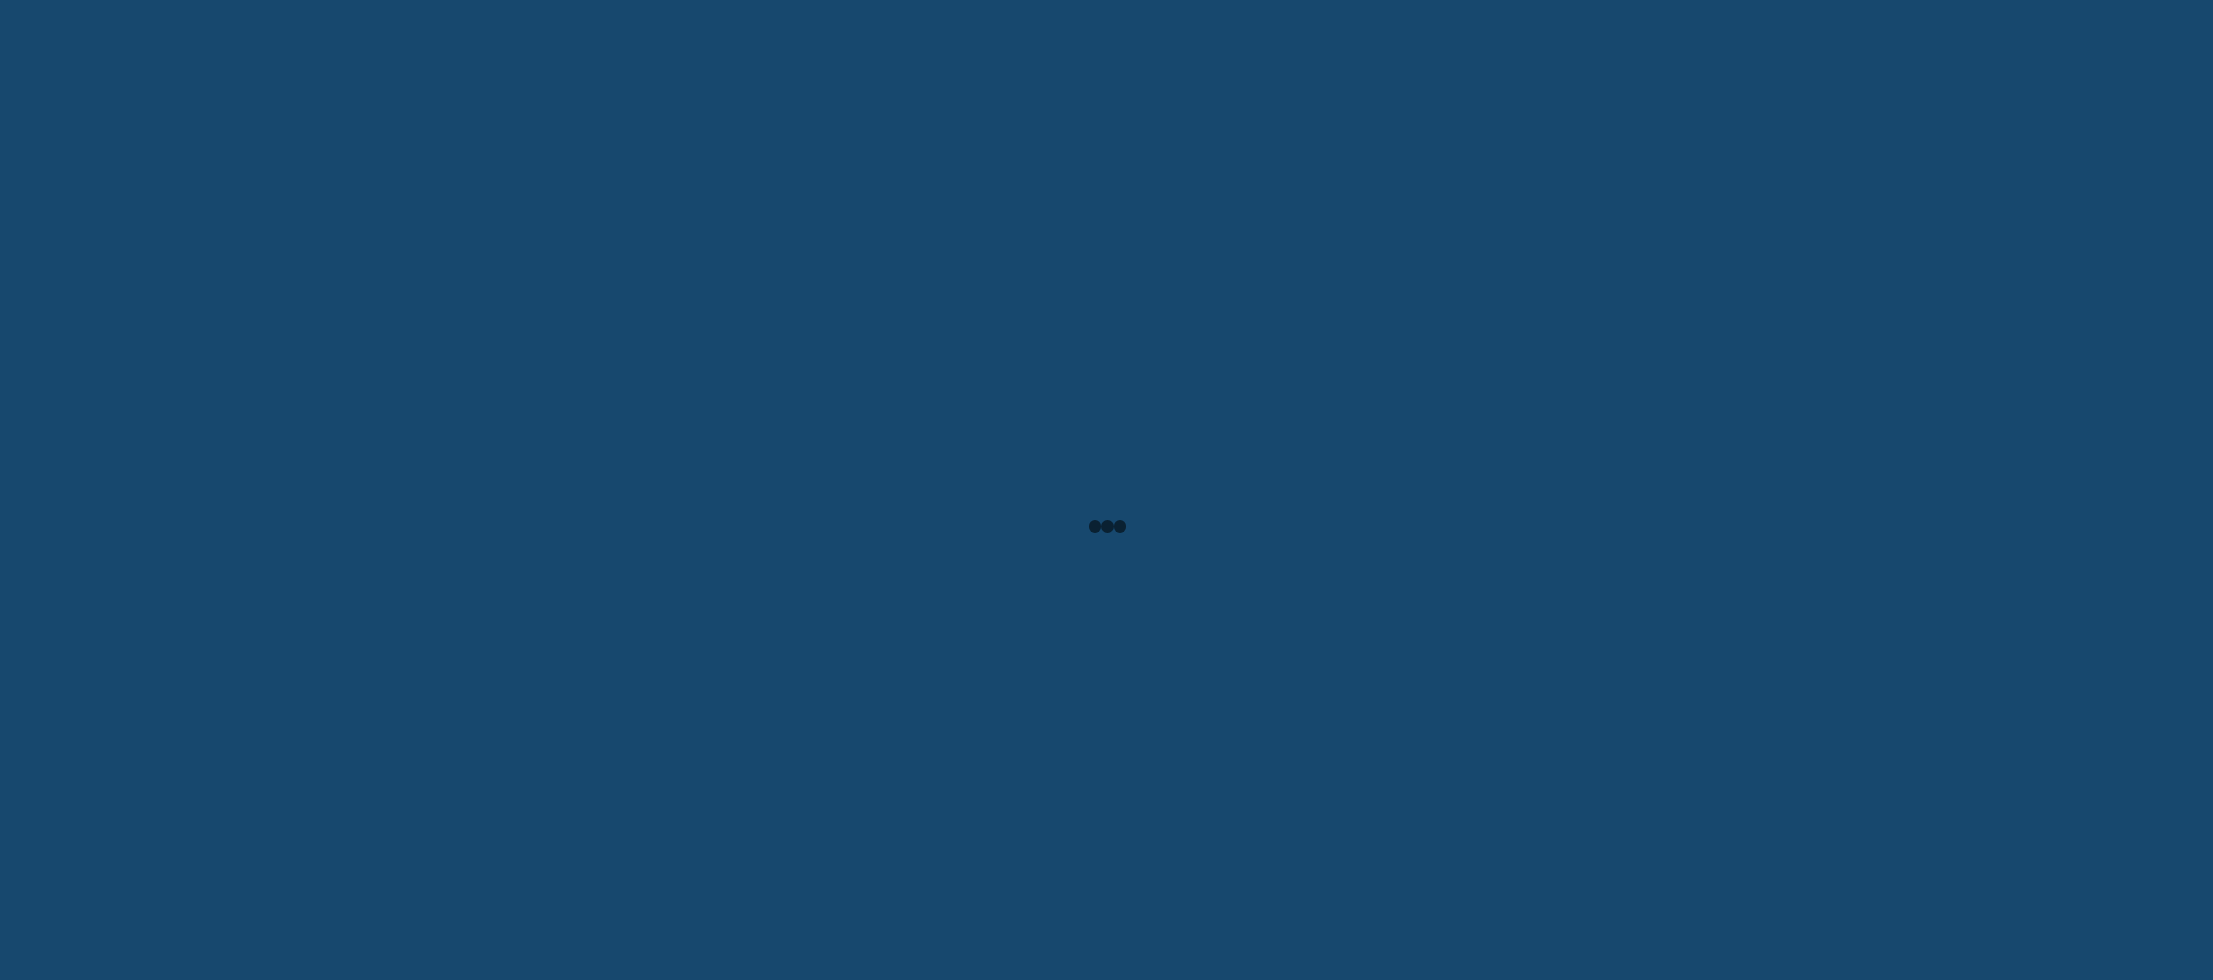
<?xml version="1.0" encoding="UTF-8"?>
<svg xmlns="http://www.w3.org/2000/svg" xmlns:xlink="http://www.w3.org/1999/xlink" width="2213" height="980">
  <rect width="100%" height="100%" fill="#17486e" />
  <rect x="1089" y="520" width="12" height="13" rx="6" fill="#0a2132" />
  <circle cx="1107.5" cy="526.5" r="6.5" fill="#0a2132" />
  <rect x="1114" y="520" width="12" height="13" rx="6" fill="#0a2132" />
</svg>
